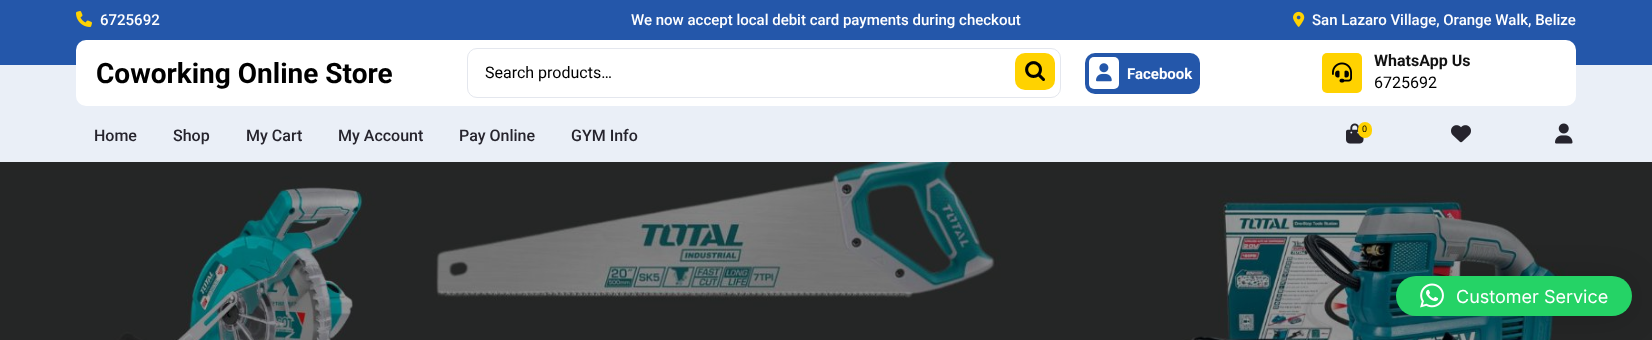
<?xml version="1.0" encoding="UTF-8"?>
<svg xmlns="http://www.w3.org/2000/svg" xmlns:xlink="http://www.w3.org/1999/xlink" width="1652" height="340">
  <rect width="100%" height="100%" fill="#2457aa" />
  <rect y="65" width="1652" height="97" fill="#eaeff7" />
  <image x="76" y="11" width="16" height="16" xlink:href="image1.png" />
  <image x="1293" y="11" width="12" height="16" xlink:href="image2.png" />
  <rect x="76" y="40" width="1500" height="66" rx="10" fill="#ffffff" />
  <rect x="467.5" y="48.5" width="593" height="49" rx="9.5" fill="none" stroke="#e4e7ee" />
  <rect x="1015" y="53" width="40" height="37" rx="10" fill="#ffd200" />
  <image x="1025" y="61" width="20" height="20" xlink:href="image3.png" />
  <rect x="1085" y="53" width="115" height="41" rx="10" fill="#2457aa" />
  <rect x="1089" y="57" width="30" height="32" rx="5" fill="#ffffff" />
  <image x="1096" y="63" width="16" height="19" xlink:href="image4.png" />
  <rect x="1322" y="53" width="40" height="40" rx="5" fill="#ffd200" />
  <image x="1332" y="62" width="20" height="21" xlink:href="image5.png" />
  <image x="1346" y="123" width="18" height="21" xlink:href="image6.png" />
  <rect x="1358" y="122" width="14" height="16" rx="7" fill="#ffd200" />
  <image x="1451" y="125" width="20" height="18" xlink:href="image7.png" />
  <image x="1555" y="123" width="18" height="21" xlink:href="image8.png" />
  <image x="0" y="162" width="1652" height="178" xlink:href="image9.png" />
  <rect x="1396" y="278" width="236" height="40" rx="20" fill="#000000" fill-opacity="0.16" filter="blur(16px)" />
  <rect x="1396" y="276" width="236" height="40" rx="20" fill="#25d366" />
  <image x="1420" y="283" width="24" height="25" xlink:href="image10.png" />
  <text x="100" y="25" style="font-family: Roboto; font-size: 15px; font-weight: 500; fill: #ffffff">6725692</text>
  <text x="631" y="25" style="font-family: Roboto; font-size: 15px; font-weight: 500; fill: #ffffff">We now accept local debit card payments during checkout</text>
  <text x="1312" y="25" style="font-family: Roboto; font-size: 15px; font-weight: 500; fill: #ffffff">San Lazaro Village, Orange Walk, Belize</text>
  <text x="96" y="83" style="font-family: Roboto; font-size: 28px; font-weight: bold; fill: #000000">Coworking Online Store</text>
  <text x="485" y="78" style="font-family: Roboto; font-size: 16px; fill: #000000">Search products…</text>
  <text x="1127" y="79" style="font-family: Roboto; font-size: 15px; font-weight: bold; fill: #ffffff">Facebook</text>
  <text x="1374" y="66" style="font-family: Roboto; font-size: 16px; font-weight: bold; fill: #121212">WhatsApp Us</text>
  <text x="1374" y="88" style="font-family: Roboto; font-size: 16px; fill: #000000">6725692</text>
  <text x="94" y="141" style="font-family: Roboto; font-size: 16px; font-weight: 500; fill: #26242d">Home</text>
  <text x="173" y="141" style="font-family: Roboto; font-size: 16px; font-weight: 500; fill: #26242d">Shop</text>
  <text x="246" y="141" style="font-family: Roboto; font-size: 16px; font-weight: 500; fill: #26242d">My Cart</text>
  <text x="338" y="141" style="font-family: Roboto; font-size: 16px; font-weight: 500; fill: #26242d">My Account</text>
  <text x="459" y="141" style="font-family: Roboto; font-size: 16px; font-weight: 500; fill: #26242d">Pay Online</text>
  <text x="571" y="141" style="font-family: Roboto; font-size: 16px; font-weight: 500; fill: #26242d">GYM Info</text>
  <text x="1362" y="132" style="font-family: Roboto; font-size: 9px; fill: #000000">0</text>
  <text x="1456" y="303" style="font-family: Inter; font-size: 18px; fill: #ffffff">Customer Service</text>
</svg>
